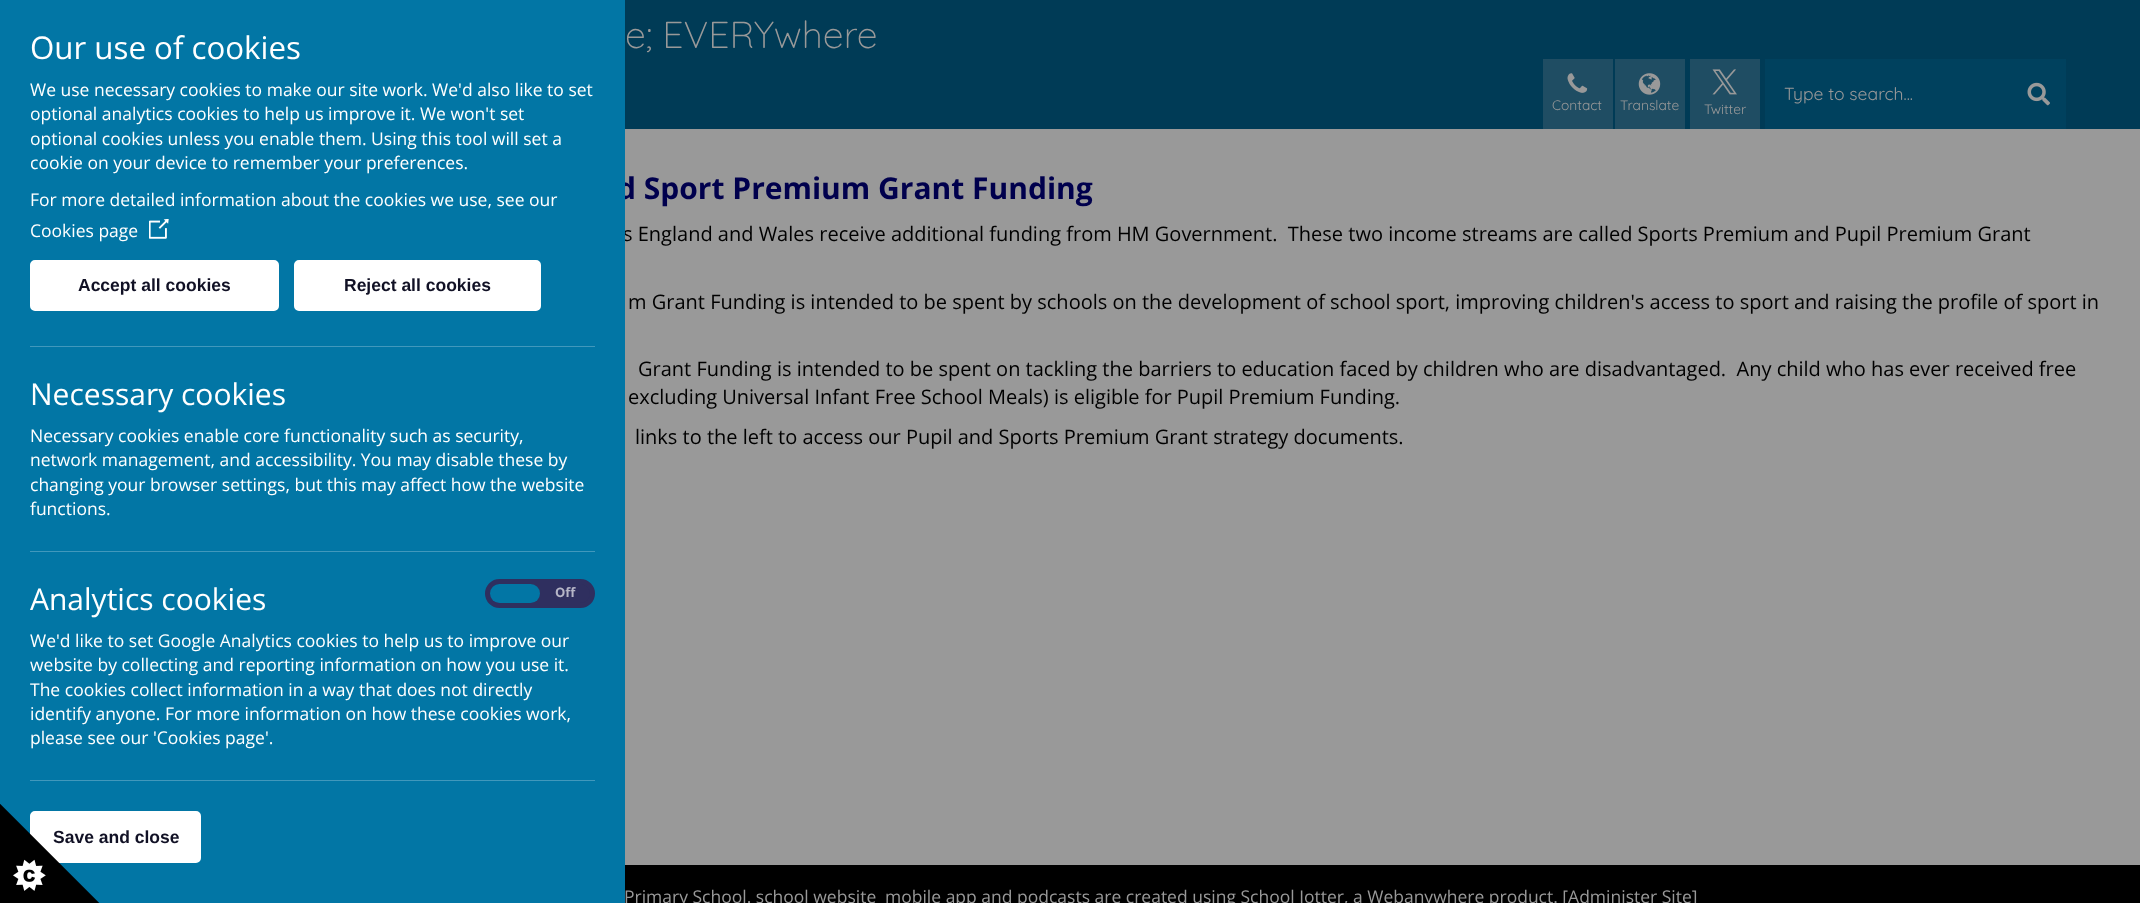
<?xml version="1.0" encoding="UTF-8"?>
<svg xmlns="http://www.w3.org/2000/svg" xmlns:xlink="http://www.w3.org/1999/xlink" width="2140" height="903">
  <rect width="100%" height="100%" fill="#999999" />
  <rect x="625" width="1515" height="129" fill="#003b56" />
  <rect x="1543" y="59" width="70" height="70" fill="#1f4d63" />
  <image x="1567" y="73" width="21" height="20" xlink:href="image1.png" />
  <rect x="1615" y="59" width="70" height="70" fill="#1f4d63" />
  <image x="1638" y="73" width="23" height="22" xlink:href="image2.png" />
  <rect x="1690" y="59" width="70" height="70" fill="#1f4d63" />
  <image x="1712" y="69" width="25" height="26" xlink:href="image3.png" />
  <rect x="1765" y="59" width="301" height="70" fill="#00415e" />
  <image x="2027" y="82" width="23" height="24" xlink:href="image4.png" />
  <rect x="625" y="865" width="1515" height="38" fill="#000000" />
  <text x="625" y="48" style="font-family: Quicksand; font-size: 37.5px; font-weight: 300; fill: #999999">e; EVERYwhere</text>
  <text x="1552" y="110" style="font-family: Quicksand; font-size: 13.75px; fill: #999999">Contact</text>
  <text x="1620" y="110" style="font-family: Quicksand; font-size: 13.75px; fill: #999999">Translate</text>
  <text x="1704" y="114" style="font-family: Quicksand; font-size: 13.75px; fill: #999999">Twitter</text>
  <text x="1784" y="100" style="font-family: Quicksand; font-size: 17.5px; fill: #999999">Type to search...</text>
  <text x="624" y="903" style="font-family: Open Sans; font-size: 17.5px; fill: #999999">Primary School. school website</text>
  <text x="885" y="903" style="font-family: Open Sans; font-size: 17.5px; fill: #999999">mobile app and podcasts are created using School Jotter, a Webanywhere product. [Administer Site]</text>
  <text x="617" y="199" style="font-family: Open Sans; font-size: 30px; font-weight: bold; fill: #00004d">d Sport Premium Grant Funding</text>
  <text x="623" y="241" style="font-family: Open Sans; font-size: 20px; fill: #000000" xml:space="preserve">s England and Wales receive additional funding from HM Government.  These two income streams are called Sports Premium and Pupil Premium Grant</text>
  <rect width="625" height="903" fill="#0276a5" />
  <rect x="31.5" y="812.5" width="168" height="49" rx="3.5" fill="#ffffff" stroke="#ffffff" stroke-width="3" />
  <text x="53" y="843" style="font-family: Liberation Sans; font-size: 17.5px; font-weight: bold; fill: #111125">Save and close</text>
  <image x="0" y="804" width="100" height="99" xlink:href="image6.png" />
  <rect x="487.5" y="581.5" width="105" height="24" rx="12" fill="#2f2f5f" stroke="#2f2f5f" stroke-width="5" />
  <rect x="490" y="584" width="50" height="19" rx="9.5" fill="#0276a5" />
  <text x="555" y="597" style="font-family: Open Sans; font-size: 13px; font-weight: bold; fill: #b6b6c7">Off</text>
  <rect x="30" y="780" width="565" height="1" fill="#4198bc" />
  <text x="30" y="744" style="font-family: Open Sans; font-size: 17.5px; fill: #ffffff">please see our 'Cookies page'.</text>
  <text x="30" y="720" style="font-family: Open Sans; font-size: 17.5px; fill: #ffffff">identify anyone. For more information on how these cookies work,</text>
  <text x="30" y="696" style="font-family: Open Sans; font-size: 17.5px; fill: #ffffff">The cookies collect information in a way that does not directly</text>
  <text x="30" y="671" style="font-family: Open Sans; font-size: 17.5px; fill: #ffffff">website by collecting and reporting information on how you use it.</text>
  <text x="30" y="647" style="font-family: Open Sans; font-size: 17.5px; fill: #ffffff">We'd like to set Google Analytics cookies to help us to improve our</text>
  <text x="30" y="610" style="font-family: Open Sans; font-size: 30px; fill: #ffffff">Analytics cookies</text>
  <rect x="30" y="551" width="565" height="1" fill="#4198bc" />
  <rect x="30" y="346" width="565" height="1" fill="#4198bc" />
  <image x="149" y="219" width="20" height="20" xlink:href="image5.png" />
  <text x="30" y="515" style="font-family: Open Sans; font-size: 17.5px; fill: #ffffff">functions.</text>
  <text x="30" y="491" style="font-family: Open Sans; font-size: 17.5px; fill: #ffffff">changing your browser settings, but this may affect how the website</text>
  <text x="30" y="466" style="font-family: Open Sans; font-size: 17.5px; fill: #ffffff">network management, and accessibility. You may disable these by</text>
  <text x="30" y="442" style="font-family: Open Sans; font-size: 17.5px; fill: #ffffff">Necessary cookies enable core functionality such as security,</text>
  <text x="30" y="405" style="font-family: Open Sans; font-size: 30px; fill: #ffffff">Necessary cookies</text>
  <rect x="295.5" y="261.5" width="244" height="48" rx="3.5" fill="#ffffff" stroke="#ffffff" stroke-width="3" />
  <text x="344" y="291" style="font-family: Liberation Sans; font-size: 17.5px; font-weight: bold; fill: #111125">Reject all cookies</text>
  <rect x="31.5" y="261.5" width="246" height="48" rx="3.5" fill="#ffffff" stroke="#ffffff" stroke-width="3" />
  <text x="78" y="291" style="font-family: Liberation Sans; font-size: 17.5px; font-weight: bold; fill: #111125">Accept all cookies</text>
  <text x="30" y="237" style="font-family: Open Sans; font-size: 17.5px; fill: #ffffff">Cookies page</text>
  <text x="30" y="206" style="font-family: Open Sans; font-size: 17.5px; fill: #ffffff">For more detailed information about the cookies we use, see our</text>
  <text x="30" y="169" style="font-family: Open Sans; font-size: 17.5px; fill: #ffffff">cookie on your device to remember your preferences.</text>
  <text x="30" y="145" style="font-family: Open Sans; font-size: 17.5px; fill: #ffffff">optional cookies unless you enable them. Using this tool will set a</text>
  <text x="30" y="120" style="font-family: Open Sans; font-size: 17.5px; fill: #ffffff">optional analytics cookies to help us improve it. We won't set</text>
  <text x="30" y="96" style="font-family: Open Sans; font-size: 17.5px; fill: #ffffff">We use necessary cookies to make our site work. We'd also like to set</text>
  <text x="30" y="59" style="font-family: Open Sans; font-size: 31.25px; fill: #ffffff">Our use of cookies</text>
  <text x="628" y="309" style="font-family: Open Sans; font-size: 20px; fill: #000000">m Grant Funding is intended to be spent by schools on the development of school sport, improving children's access to sport and raising the profile of sport in</text>
  <text x="638" y="376" style="font-family: Open Sans; font-size: 20px; fill: #000000" xml:space="preserve">Grant Funding is intended to be spent on tackling the barriers to education faced by children who are disadvantaged.  Any child who has ever received free</text>
  <text x="628" y="404" style="font-family: Open Sans; font-size: 20px; fill: #000000">excluding Universal Infant Free School Meals) is eligible for Pupil Premium Funding.</text>
  <text x="635" y="444" style="font-family: Open Sans; font-size: 20px; fill: #000000">links to the left to access our Pupil and Sports Premium Grant strategy documents.</text>
</svg>
